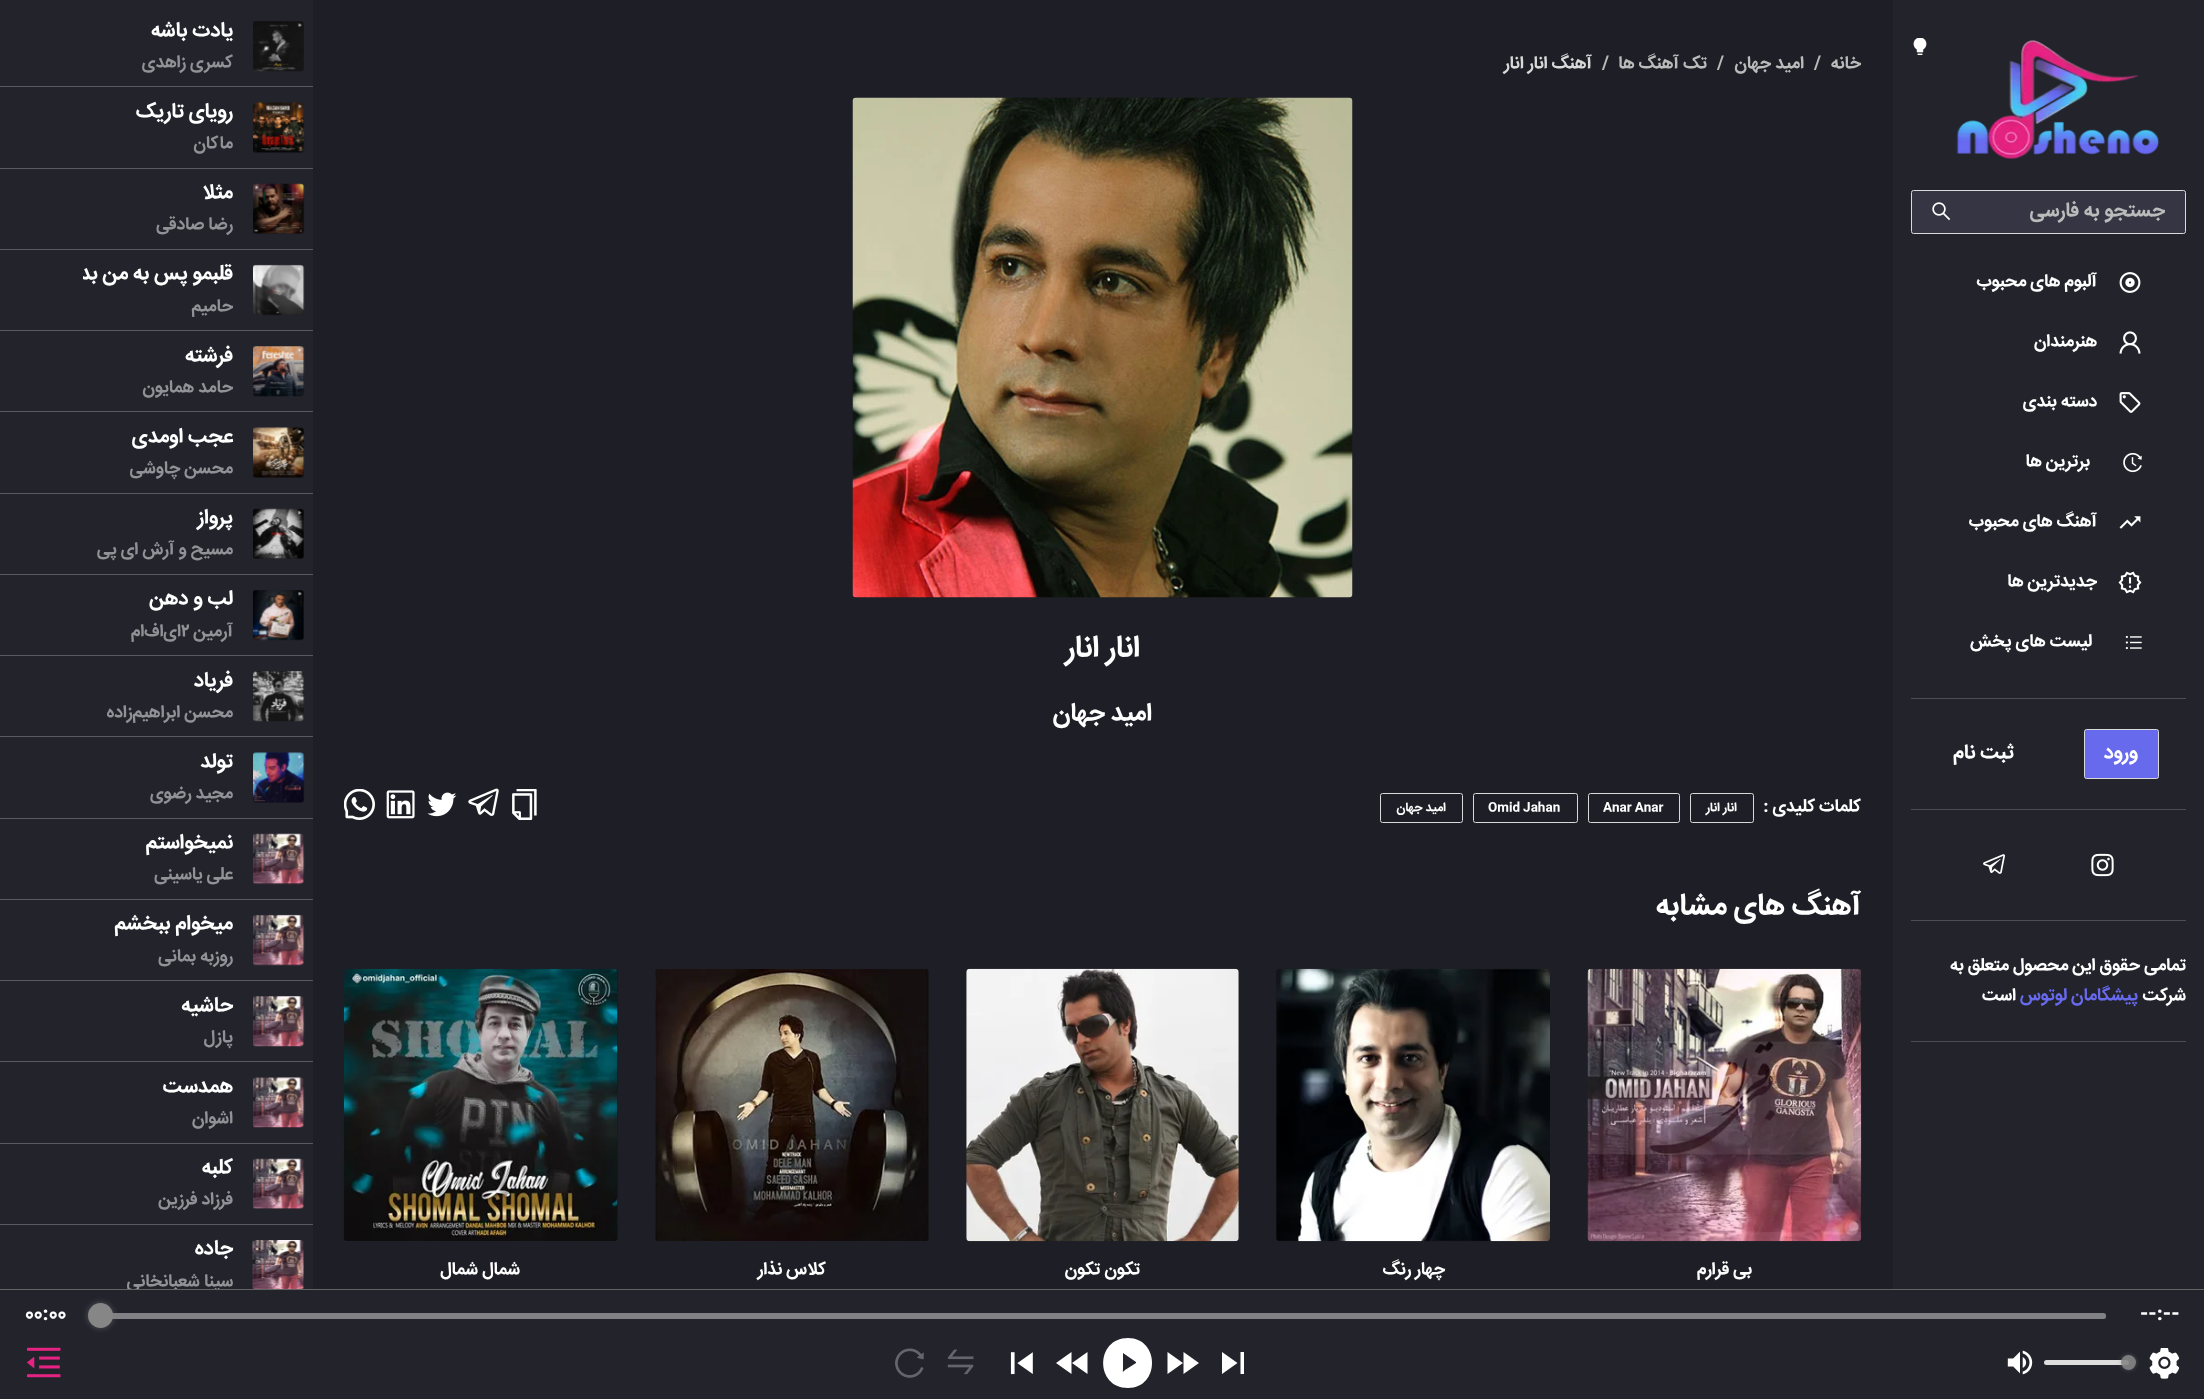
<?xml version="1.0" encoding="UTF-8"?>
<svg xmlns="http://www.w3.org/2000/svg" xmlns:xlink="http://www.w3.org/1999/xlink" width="2204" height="1399">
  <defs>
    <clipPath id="clip1"><rect x="83" y="259" width="150" height="34" /></clipPath>
    <clipPath id="clip2"><path d="M 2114 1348 h 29 v 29 h -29 z m 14.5 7 c 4 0 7.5 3.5 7.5 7.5 c 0 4 -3.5 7.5 -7.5 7.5 c -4 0 -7.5 -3.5 -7.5 -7.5 c 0 -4 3.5 -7.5 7.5 -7.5 z" clip-rule="evenodd" /></clipPath>
  </defs>
  <rect width="100%" height="100%" fill="#1e1e26" />
  <rect width="313" height="1289" fill="#23232c" />
  <rect y="86" width="313" height="1" fill="#5a5a61" />
  <rect x="253" y="21" width="51" height="50" rx="4" fill="#1c1c24" />
  <image x="253" y="21" width="51" height="51" xlink:href="image1.png" />
  <rect y="168" width="313" height="1" fill="#5a5a61" />
  <rect x="253" y="103" width="51" height="50" rx="4" fill="#1c1c24" />
  <image x="253" y="102" width="52" height="51" xlink:href="image2.png" />
  <rect y="249" width="313" height="1" fill="#5a5a61" />
  <rect x="253" y="184" width="51" height="50" rx="4" fill="#1c1c24" />
  <image x="253" y="183" width="52" height="51" xlink:href="image3.png" />
  <rect y="330" width="313" height="1" fill="#5a5a61" />
  <rect x="253" y="265" width="51" height="50" rx="4" fill="#1c1c24" />
  <image x="253" y="264" width="52" height="52" xlink:href="image4.png" />
  <rect y="411" width="313" height="1" fill="#5a5a61" />
  <rect x="253" y="346" width="51" height="50" rx="4" fill="#1c1c24" />
  <image x="253" y="346" width="52" height="51" xlink:href="image5.png" />
  <rect y="493" width="313" height="1" fill="#5a5a61" />
  <rect x="253" y="428" width="51" height="50" rx="4" fill="#1c1c24" />
  <image x="253" y="427" width="52" height="51" xlink:href="image6.png" />
  <rect y="574" width="313" height="1" fill="#5a5a61" />
  <rect x="253" y="509" width="51" height="50" rx="4" fill="#1c1c24" />
  <image x="253" y="508" width="51" height="51" xlink:href="image7.png" />
  <rect y="655" width="313" height="1" fill="#5a5a61" />
  <rect x="253" y="590" width="51" height="50" rx="4" fill="#1c1c24" />
  <image x="253" y="590" width="51" height="51" xlink:href="image8.png" />
  <rect y="736" width="313" height="1" fill="#5a5a61" />
  <rect x="253" y="671" width="51" height="50" rx="4" fill="#1c1c24" />
  <image x="253" y="671" width="52" height="51" xlink:href="image9.png" />
  <rect y="818" width="313" height="1" fill="#5a5a61" />
  <rect x="253" y="753" width="51" height="50" rx="4" fill="#1c1c24" />
  <image x="253" y="752" width="52" height="51" xlink:href="image10.png" />
  <rect y="899" width="313" height="1" fill="#5a5a61" />
  <rect x="253" y="834" width="51" height="50" rx="4" fill="#1c1c24" />
  <image x="253" y="833" width="52" height="52" xlink:href="image11.png" />
  <rect y="980" width="313" height="1" fill="#5a5a61" />
  <rect x="253" y="915" width="51" height="50" rx="4" fill="#1c1c24" />
  <image x="253" y="914" width="52" height="52" xlink:href="image12.png" />
  <rect y="1061" width="313" height="1" fill="#5a5a61" />
  <rect x="253" y="996" width="51" height="50" rx="4" fill="#1c1c24" />
  <image x="253" y="996" width="52" height="51" xlink:href="image13.png" />
  <rect y="1143" width="313" height="1" fill="#5a5a61" />
  <rect x="253" y="1078" width="51" height="50" rx="4" fill="#1c1c24" />
  <image x="253" y="1077" width="52" height="51" xlink:href="image14.png" />
  <rect y="1224" width="313" height="1" fill="#5a5a61" />
  <rect x="253" y="1159" width="51" height="50" rx="4" fill="#1c1c24" />
  <image x="253" y="1158" width="52" height="51" xlink:href="image15.png" />
  <rect x="253" y="1240" width="51" height="50" rx="4" fill="#1c1c24" />
  <image x="252" y="1240" width="52" height="49" xlink:href="image16.png" />
  <image x="852" y="97" width="501" height="501" xlink:href="image17.png" />
  <rect x="1690.5" y="793.5" width="63" height="29" rx="2" fill="none" stroke="#d9d9d9" />
  <rect x="1588.5" y="793.5" width="91" height="29" rx="2" fill="none" stroke="#d9d9d9" />
  <rect x="1473.5" y="793.5" width="104" height="29" rx="2" fill="none" stroke="#d9d9d9" />
  <rect x="1380.5" y="793.5" width="82" height="29" rx="2" fill="none" stroke="#d9d9d9" />
  <image x="512" y="789" width="25" height="31" xlink:href="image18.png" />
  <image x="468" y="788" width="31" height="28" xlink:href="image19.png" />
  <image x="427" y="792" width="30" height="25" xlink:href="image20.png" />
  <image x="386" y="790" width="29" height="29" xlink:href="image21.png" />
  <image x="344" y="789" width="31" height="31" xlink:href="image22.png" />
  <image x="1587" y="968" width="275" height="274" xlink:href="image23.png" />
  <rect x="1276" y="969" width="274" height="272" rx="4" fill="#18181f" />
  <image x="1276" y="968" width="274" height="274" xlink:href="image24.png" />
  <rect x="966" y="969" width="273" height="272" rx="4" fill="#18181f" />
  <image x="966" y="968" width="273" height="274" xlink:href="image25.png" />
  <rect x="655" y="969" width="274" height="272" rx="4" fill="#18181f" />
  <image x="655" y="969" width="274" height="272" xlink:href="image26.png" />
  <rect x="344" y="969" width="274" height="272" rx="4" fill="#18181f" />
  <image x="343" y="968" width="275" height="273" xlink:href="image27.png" />
  <rect x="1893" width="311" height="1289" fill="#23232c" />
  <image x="1956" y="40" width="204" height="120" xlink:href="image34.png" />
  <image x="1913" y="38" width="14" height="17" xlink:href="image35.png" />
  <rect x="1911.5" y="190.5" width="274" height="43" rx="2" fill="#353543" stroke="#d9d9d9" />
  <image x="1932" y="202" width="19" height="19" xlink:href="image36.png" />
  <image x="2119" y="272" width="22" height="21" xlink:href="image37.png" />
  <image x="2119" y="331" width="22" height="23" xlink:href="image38.png" />
  <image x="2119" y="392" width="22" height="21" xlink:href="image39.png" />
  <image x="2123" y="453" width="19" height="20" xlink:href="image40.png" />
  <image x="2119" y="516" width="22" height="13" xlink:href="image41.png" />
  <image x="2118" y="571" width="24" height="23" xlink:href="image42.png" />
  <image x="2125" y="635" width="17" height="15" xlink:href="image43.png" />
  <rect x="1911" y="698" width="275" height="1" fill="#4d4d54" />
  <rect x="2084.5" y="729.5" width="74" height="49" rx="2" fill="#686aee" stroke="#d9d9d9" />
  <rect x="1911" y="809" width="275" height="1" fill="#4d4d54" />
  <image x="2091" y="853" width="23" height="24" xlink:href="image44.png" />
  <image x="1983" y="854" width="22" height="20" xlink:href="image45.png" />
  <rect x="1911" y="920" width="275" height="1" fill="#4d4d54" />
  <rect x="1911" y="1041" width="275" height="1" fill="#4d4d54" />
  <text x="233" y="36" style="font-family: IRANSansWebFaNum; font-size: 20.5px; font-weight: bold; direction: rtl; fill: #ffffff">یادت باشه</text>
  <text x="233" y="67" style="font-family: IRANSansWebFaNum; font-size: 17.5px; font-weight: bold; direction: rtl; fill: #919196">کسری زاهدی</text>
  <text x="233" y="117" style="font-family: IRANSansWebFaNum; font-size: 20.5px; font-weight: bold; direction: rtl; fill: #ffffff">رویای تاریک</text>
  <text x="233" y="148" style="font-family: IRANSansWebFaNum; font-size: 17.5px; font-weight: bold; direction: rtl; fill: #919196">ماکان</text>
  <text x="233" y="198" style="font-family: IRANSansWebFaNum; font-size: 20.5px; font-weight: bold; direction: rtl; fill: #ffffff">مثلا</text>
  <text x="233" y="229" style="font-family: IRANSansWebFaNum; font-size: 17.5px; font-weight: bold; direction: rtl; fill: #919196">رضا صادقی</text>
  <g clip-path="url(#clip1)">
    <text x="233" y="279" style="font-family: IRANSansWebFaNum; font-size: 20.5px; font-weight: bold; direction: rtl; fill: #ffffff">قلبمو پس به من بده</text>
  </g>
  <text x="233" y="311" style="font-family: IRANSansWebFaNum; font-size: 17.5px; font-weight: bold; direction: rtl; fill: #919196">حامیم</text>
  <text x="233" y="361" style="font-family: IRANSansWebFaNum; font-size: 20.5px; font-weight: bold; direction: rtl; fill: #ffffff">فرشته</text>
  <text x="233" y="392" style="font-family: IRANSansWebFaNum; font-size: 17.5px; font-weight: bold; direction: rtl; fill: #919196">حامد همایون</text>
  <text x="233" y="442" style="font-family: IRANSansWebFaNum; font-size: 20.5px; font-weight: bold; direction: rtl; fill: #ffffff">عجب اومدی</text>
  <text x="233" y="473" style="font-family: IRANSansWebFaNum; font-size: 17.5px; font-weight: bold; direction: rtl; fill: #919196">محسن چاوشی</text>
  <text x="233" y="523" style="font-family: IRANSansWebFaNum; font-size: 20.5px; font-weight: bold; direction: rtl; fill: #ffffff">پرواز</text>
  <text x="233" y="554" style="font-family: IRANSansWebFaNum; font-size: 17.5px; font-weight: bold; direction: rtl; fill: #919196">مسیح و آرش ای پی</text>
  <text x="233" y="604" style="font-family: IRANSansWebFaNum; font-size: 20.5px; font-weight: bold; direction: rtl; fill: #ffffff">لب و دهن</text>
  <text x="233" y="636" style="font-family: IRANSansWebFaNum; font-size: 17.5px; font-weight: bold; direction: rtl; fill: #919196">آرمین</text>
  <text x="181" y="636" style="font-family: IRANSansWebFaNum; font-size: 17.5px; font-weight: bold; fill: #919196">۲</text>
  <text x="181" y="636" style="font-family: IRANSansWebFaNum; font-size: 17.5px; font-weight: bold; direction: rtl; fill: #919196">ای‌اف‌ام</text>
  <text x="233" y="686" style="font-family: IRANSansWebFaNum; font-size: 20.5px; font-weight: bold; direction: rtl; fill: #ffffff">فریاد</text>
  <text x="233" y="717" style="font-family: IRANSansWebFaNum; font-size: 17.5px; font-weight: bold; direction: rtl; fill: #919196">محسن ابراهیم‌زاده</text>
  <text x="233" y="767" style="font-family: IRANSansWebFaNum; font-size: 20.5px; font-weight: bold; direction: rtl; fill: #ffffff">تولد</text>
  <text x="233" y="798" style="font-family: IRANSansWebFaNum; font-size: 17.5px; font-weight: bold; direction: rtl; fill: #919196">مجید رضوی</text>
  <text x="233" y="848" style="font-family: IRANSansWebFaNum; font-size: 20.5px; font-weight: bold; direction: rtl; fill: #ffffff">نمیخواستم</text>
  <text x="233" y="879" style="font-family: IRANSansWebFaNum; font-size: 17.5px; font-weight: bold; direction: rtl; fill: #919196">علی یاسینی</text>
  <text x="233" y="929" style="font-family: IRANSansWebFaNum; font-size: 20.5px; font-weight: bold; direction: rtl; fill: #ffffff">میخوام ببخشم</text>
  <text x="233" y="961" style="font-family: IRANSansWebFaNum; font-size: 17.5px; font-weight: bold; direction: rtl; fill: #919196">روزبه بمانی</text>
  <text x="233" y="1011" style="font-family: IRANSansWebFaNum; font-size: 20.5px; font-weight: bold; direction: rtl; fill: #ffffff">حاشیه</text>
  <text x="233" y="1042" style="font-family: IRANSansWebFaNum; font-size: 17.5px; font-weight: bold; direction: rtl; fill: #919196">پازل</text>
  <text x="233" y="1092" style="font-family: IRANSansWebFaNum; font-size: 20.5px; font-weight: bold; direction: rtl; fill: #ffffff">همدست</text>
  <text x="233" y="1123" style="font-family: IRANSansWebFaNum; font-size: 17.5px; font-weight: bold; direction: rtl; fill: #919196">اشوان</text>
  <text x="233" y="1173" style="font-family: IRANSansWebFaNum; font-size: 20.5px; font-weight: bold; direction: rtl; fill: #ffffff">کلبه</text>
  <text x="233" y="1204" style="font-family: IRANSansWebFaNum; font-size: 17.5px; font-weight: bold; direction: rtl; fill: #919196">فرزاد فرزین</text>
  <text x="233" y="1254" style="font-family: IRANSansWebFaNum; font-size: 20.5px; font-weight: bold; direction: rtl; fill: #ffffff">جاده</text>
  <text x="233" y="1286" style="font-family: IRANSansWebFaNum; font-size: 17.5px; font-weight: bold; direction: rtl; fill: #919196">سینا شعبانخانی</text>
  <text x="1861" y="68" style="font-family: IRANSansWebFaNum; font-size: 17.5px; font-weight: bold; direction: rtl; fill: #bbbbbb">خانه</text>
  <text x="1814" y="68" style="font-family: IRANSansWebFaNum; font-size: 17.5px; font-weight: bold; fill: #bbbbbb">/</text>
  <text x="1804" y="68" style="font-family: IRANSansWebFaNum; font-size: 17.5px; font-weight: bold; direction: rtl; fill: #bbbbbb">امید جهان</text>
  <text x="1717" y="68" style="font-family: IRANSansWebFaNum; font-size: 17.5px; font-weight: bold; fill: #bbbbbb">/</text>
  <text x="1707" y="68" style="font-family: IRANSansWebFaNum; font-size: 17.5px; font-weight: bold; direction: rtl; fill: #bbbbbb">تک آهنگ ها</text>
  <text x="1602" y="68" style="font-family: IRANSansWebFaNum; font-size: 17.5px; font-weight: bold; fill: #bbbbbb">/</text>
  <text x="1592" y="68" style="font-family: IRANSansWebFaNum; font-size: 17.5px; font-weight: bold; direction: rtl; fill: #d9d9d9">آهنگ انار انار</text>
  <text x="1140" y="656" style="font-family: IRANSansWebFaNum; font-size: 30px; font-weight: bold; direction: rtl; fill: #ffffff">انار انار</text>
  <text x="1152" y="720" style="font-family: IRANSansWebFaNum; font-size: 25px; font-weight: bold; direction: rtl; fill: #ffffff">امید جهان</text>
  <text x="1861" y="811" style="font-family: IRANSansWebFaNum; font-size: 17.5px; font-weight: bold; direction: rtl; fill: #ffffff">کلمات کلیدی :</text>
  <text x="1737" y="811" style="font-family: IRANSansWebFaNum; font-size: 12.5px; font-weight: bold; direction: rtl; fill: #ffffff">انار انار</text>
  <text x="1603" y="811" style="font-family: IRANSansWebFaNum; font-size: 12.5px; font-weight: bold; fill: #ffffff">Anar Anar</text>
  <text x="1488" y="811" style="font-family: IRANSansWebFaNum; font-size: 12.5px; font-weight: bold; fill: #ffffff">Omid Jahan</text>
  <text x="1446" y="811" style="font-family: IRANSansWebFaNum; font-size: 12.5px; font-weight: bold; direction: rtl; fill: #ffffff">امید جهان</text>
  <text x="1861" y="914" style="font-family: IRANSansWebFaNum; font-size: 30px; font-weight: bold; direction: rtl; fill: #ffffff">آهنگ های مشابه</text>
  <text x="1752" y="1274" style="font-family: IRANSansWebFaNum; font-size: 17.5px; font-weight: bold; direction: rtl; fill: #ffffff">بی قرارم</text>
  <text x="1445" y="1274" style="font-family: IRANSansWebFaNum; font-size: 17.5px; font-weight: bold; direction: rtl; fill: #ffffff">چهار رنگ</text>
  <text x="1140" y="1274" style="font-family: IRANSansWebFaNum; font-size: 17.5px; font-weight: bold; direction: rtl; fill: #ffffff">تکون تکون</text>
  <text x="826" y="1274" style="font-family: IRANSansWebFaNum; font-size: 17.5px; font-weight: bold; direction: rtl; fill: #ffffff">کلاس نذار</text>
  <text x="520" y="1274" style="font-family: IRANSansWebFaNum; font-size: 17.5px; font-weight: bold; direction: rtl; fill: #ffffff">شمال شمال</text>
  <rect y="1290" width="2204" height="109" fill="#23232c" />
  <rect y="1289" width="2204" height="1" fill="#636363" />
  <text x="2140" y="1319" style="font-family: IRANSansWebFaNum; font-size: 20px; font-weight: bold; fill: #ffffff">--:--</text>
  <rect x="100" y="1313" width="2006" height="6" rx="2.5" fill="#818185" />
  <rect x="88" y="1303" width="25" height="25" rx="12.5" fill="#878787" fill-opacity="0.5" filter="blur(3px)" />
  <circle cx="100.5" cy="1315.5" r="12.5" fill="#868686" />
  <text x="25" y="1319" style="font-family: IRANSansWebFaNum; font-size: 20px; font-weight: bold; fill: #ffffff">00:00</text>
  <image x="2149" y="1348" width="31" height="31" xlink:href="image28.png" />
  <rect x="2044" y="1360" width="85" height="5" rx="2.5" fill="#dddddd" />
  <g clip-path="url(#clip2)">
    <rect x="2121" y="1355" width="15" height="15" rx="7.5" fill="#878787" fill-opacity="0.45" filter="blur(2px)" />
  </g>
  <circle cx="2128.5" cy="1362.5" r="7.5" fill="#868686" fill-opacity="0.9" />
  <image x="2007" y="1350" width="26" height="25" xlink:href="image29.png" />
  <path d="M 1240.5 1374 h 3.5 v -22 h -3.5 m -18.5 22 l 15.5 -11 l -15.5 -11 z" fill="#ffffff" />
  <path d="M 1183.5 1352 v 22 l 15.5 -11 m -31.5 11 l 15.5 -11 l -15.5 -11 z" fill="#ffffff" />
  <path d="M 1128 1338 c -33 0 -33 50 0 50 c 32 0 32 -50 0 -50 z m 8 25 l -11 7 c -3 3 -2 2 -2 -2 v -15 l 13 9 z" fill="#ffffff" />
  <path d="M 1072 1363 l 15.5 11 v -22 m -16 22 v -22 l -15.5 11 z" fill="#ffffff" />
  <image x="1010" y="1352" width="23" height="23" xlink:href="image30.png" />
  <image x="947" y="1349" width="27" height="26" xlink:href="image31.png" />
  <image x="895" y="1348" width="29" height="30" xlink:href="image32.png" />
  <image x="27" y="1347" width="34" height="31" xlink:href="image33.png" />
  <text x="2165" y="216" style="font-family: IRANSansWebFaNum; font-size: 20px; font-weight: bold; direction: rtl; fill: #bbbbbb">جستجو به فارسی</text>
  <text x="2097" y="286" style="font-family: IRANSansWebFaNum; font-size: 17.5px; font-weight: bold; direction: rtl; fill: #ffffff">آلبوم های محبوب</text>
  <text x="2097" y="346" style="font-family: IRANSansWebFaNum; font-size: 17.5px; font-weight: bold; direction: rtl; fill: #ffffff">هنرمندان</text>
  <text x="2097" y="406" style="font-family: IRANSansWebFaNum; font-size: 17.5px; font-weight: bold; direction: rtl; fill: #ffffff">دسته بندی</text>
  <text x="2090" y="466" style="font-family: IRANSansWebFaNum; font-size: 17.5px; font-weight: bold; direction: rtl; fill: #ffffff">برترین ها</text>
  <text x="2097" y="526" style="font-family: IRANSansWebFaNum; font-size: 17.5px; font-weight: bold; direction: rtl; fill: #ffffff">آهنگ های محبوب</text>
  <text x="2097" y="586" style="font-family: IRANSansWebFaNum; font-size: 17.5px; font-weight: bold; direction: rtl; fill: #ffffff">جدیدترین ها</text>
  <text x="2092" y="646" style="font-family: IRANSansWebFaNum; font-size: 17.5px; font-weight: bold; direction: rtl; fill: #ffffff">لیست های پخش</text>
  <text x="2138" y="758" style="font-family: IRANSansWebFaNum; font-size: 20px; font-weight: bold; direction: rtl; fill: #ffffff">ورود</text>
  <text x="2014" y="758" style="font-family: IRANSansWebFaNum; font-size: 20px; font-weight: bold; direction: rtl; fill: #ffffff">ثبت نام</text>
  <text x="2186" y="970" style="font-family: IRANSansWebFaNum; font-size: 17.5px; font-weight: bold; direction: rtl; fill: #ffffff">تمامی حقوق این محصول متعلق به</text>
  <text x="2186" y="1000" style="font-family: IRANSansWebFaNum; font-size: 17.5px; font-weight: bold; direction: rtl; fill: #ffffff">شرکت</text>
  <text x="2138" y="1000" style="font-family: IRANSansWebFaNum; font-size: 17.5px; font-weight: bold; direction: rtl; fill: #686aee">پیشگامان لوتوس</text>
  <text x="2016" y="1000" style="font-family: IRANSansWebFaNum; font-size: 17.5px; font-weight: bold; direction: rtl; fill: #ffffff">است</text>
</svg>
